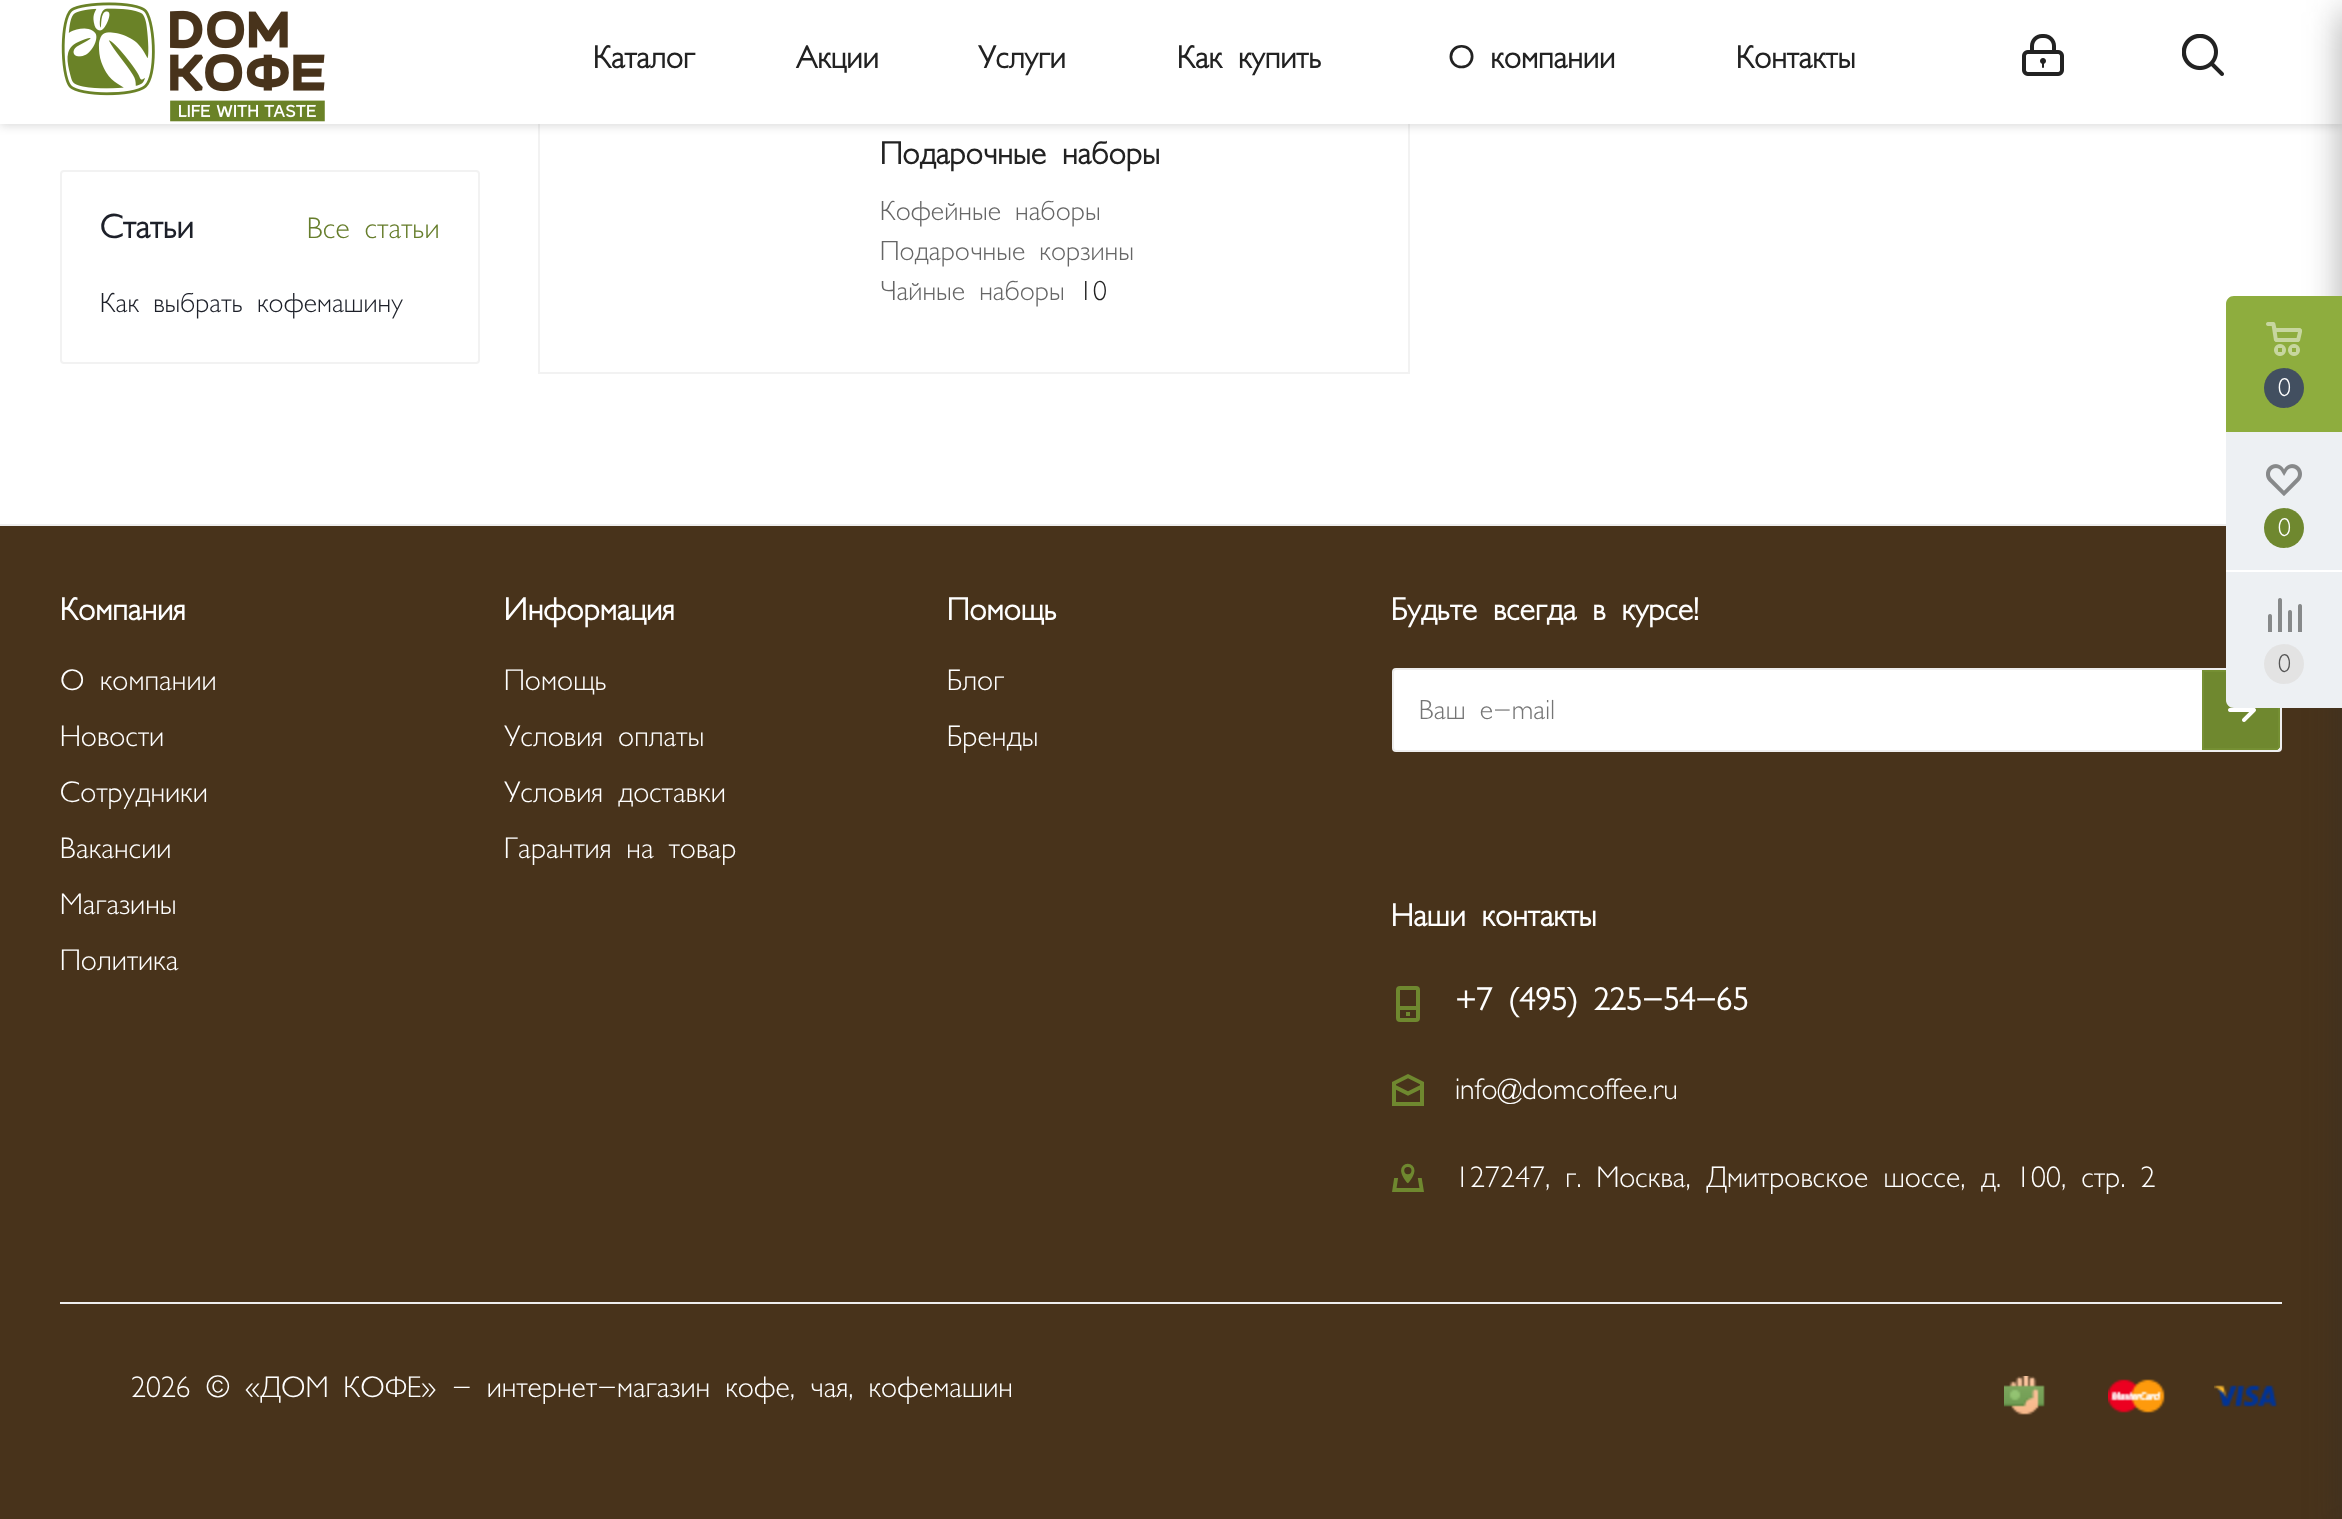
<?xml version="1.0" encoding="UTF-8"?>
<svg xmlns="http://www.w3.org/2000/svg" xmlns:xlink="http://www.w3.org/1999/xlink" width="2342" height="1519">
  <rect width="100%" height="100%" fill="#ffffff" />
  <rect x="539" y="75" width="870" height="298" fill="none" stroke="#f2f2f2" stroke-width="2" />
  <rect y="2" width="2342" height="124" fill="#000000" fill-opacity="0.14" filter="blur(5px)" />
  <rect width="2342" height="124" fill="#ffffff" />
  <image x="61" y="2" width="264" height="120" xlink:href="image1.png" />
  <image x="2022" y="34" width="42" height="42" xlink:href="image2.png" />
  <rect x="2182" y="34" width="42" height="42" fill="#222222" />
  <image x="2182" y="34" width="42" height="42" xlink:href="image3.png" />
  <rect x="61" y="171" width="418" height="192" rx="3" fill="none" stroke="#f2f2f2" stroke-width="2" />
  <rect y="526" width="2342" height="993" fill="#48331b" />
  <rect x="2342" y="12" width="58" height="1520" rx="4" fill="#2c2c2c" fill-opacity="0.4" filter="blur(18px)" />
  <rect x="1393" y="669" width="888" height="82" rx="3" fill="#ffffff" stroke="#eeeeee" stroke-width="2" />
  <path d="M 2202 670 h 74 c 2 0 4 2 4 4 v 72 c 0 2 -2 4 -4 4 h -74 z" fill="#6f882f" />
  <image x="2228" y="708" width="28" height="14" xlink:href="image7.png" />
  <path d="M 2203 671 h 73 c 1.5 0 3 1.5 3 3 v 72 c 0 1.5 -1.5 3 -3 3 h -73 z" fill="none" stroke="#758f33" stroke-width="2" />
  <path d="M 2234 296 h 108 v 412 h -108 c -4.5 0 -8 -3.5 -8 -8 v -396 c 0 -4.5 3.5 -8 8 -8 z" fill="#edf0f3" />
  <path d="M 2234 296 h 108 v 136 h -116 v -128 c 0 -4.5 3.5 -8 8 -8 z" fill="#8ead3e" />
  <image x="2266" y="322" width="36" height="34" xlink:href="image4.png" />
  <circle cx="2284" cy="388" r="20" fill="#424f60" />
  <image x="2266" y="464" width="36" height="32" xlink:href="image5.png" />
  <circle cx="2284" cy="528" r="20" fill="#6f882f" />
  <rect x="2226" y="570" width="116" height="2" fill="#ffffff" />
  <image x="2268" y="598" width="34" height="34" xlink:href="image6.png" />
  <circle cx="2284" cy="664" r="20" fill="#e3e3e3" />
  <rect y="524" width="2226" height="2" fill="#eeeeee" />
  <image x="1396" y="986" width="24" height="36" xlink:href="image8.png" />
  <image x="1392" y="1074" width="32" height="32" xlink:href="image9.png" />
  <image x="1392" y="1163" width="32" height="29" xlink:href="image10.png" />
  <rect x="60" y="1302" width="2222" height="2" fill="#eeeeee" />
  <image x="2004" y="1376" width="41" height="39" xlink:href="image11.png" />
  <image x="2108" y="1379" width="57" height="35" xlink:href="image12.png" />
  <image x="2214" y="1384" width="63" height="23" xlink:href="image13.png" />
  <text x="593" y="68" style="font-family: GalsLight; font-size: 32px; font-weight: bold; fill: #222222">Каталог</text>
  <text x="796" y="68" style="font-family: GalsLight; font-size: 32px; font-weight: bold; fill: #222222">Акции</text>
  <text x="978" y="68" style="font-family: GalsLight; font-size: 32px; font-weight: bold; fill: #222222">Услуги</text>
  <text x="1177" y="68" style="font-family: GalsLight; font-size: 32px; font-weight: bold; fill: #222222">Как купить</text>
  <text x="1448" y="68" style="font-family: GalsLight; font-size: 32px; font-weight: bold; fill: #222222">О компании</text>
  <text x="1736" y="68" style="font-family: GalsLight; font-size: 32px; font-weight: bold; fill: #222222">Контакты</text>
  <text x="100" y="238" style="font-family: GalsLight; font-size: 34px; font-weight: bold; fill: #1d2029">Статьи</text>
  <text x="307" y="238" style="font-family: GalsLight; font-size: 30px; font-weight: 300; fill: #667d2b">Все статьи</text>
  <text x="100" y="312" style="font-family: GalsLight; font-size: 27.9px; font-weight: 300; fill: #1d2029">Как выбрать кофемашину</text>
  <text x="880" y="164" style="font-family: GalsLight; font-size: 32px; font-weight: bold; fill: #222222">Подарочные наборы</text>
  <text x="880" y="220" style="font-family: GalsLight; font-size: 28px; font-weight: 300; fill: #666666">Кофейные наборы</text>
  <text x="880" y="260" style="font-family: GalsLight; font-size: 28px; font-weight: 300; fill: #666666">Подарочные корзины</text>
  <text x="880" y="300" style="font-family: GalsLight; font-size: 28px; font-weight: 300; fill: #666666">Чайные наборы</text>
  <text x="1079" y="300" style="font-family: GalsLight; font-size: 28px; font-weight: 300; fill: #222222">10</text>
  <text x="2278" y="396" style="font-family: GalsLight; font-size: 26px; font-weight: 300; fill: #ffffff">0</text>
  <text x="2278" y="536" style="font-family: GalsLight; font-size: 26px; font-weight: 300; fill: #ffffff">0</text>
  <text x="2278" y="672" style="font-family: GalsLight; font-size: 26px; font-weight: 300; fill: #555555">0</text>
  <text x="60" y="620" style="font-family: GalsLight; font-size: 32px; font-weight: bold; fill: #ffffff">Компания</text>
  <text x="60" y="690" style="font-family: GalsLight; font-size: 30px; font-weight: 300; fill: #ffffff">О компании</text>
  <text x="60" y="746" style="font-family: GalsLight; font-size: 30px; font-weight: 300; fill: #ffffff">Новости</text>
  <text x="60" y="802" style="font-family: GalsLight; font-size: 30px; font-weight: 300; fill: #ffffff">Сотрудники</text>
  <text x="60" y="858" style="font-family: GalsLight; font-size: 30px; font-weight: 300; fill: #ffffff">Вакансии</text>
  <text x="60" y="914" style="font-family: GalsLight; font-size: 30px; font-weight: 300; fill: #ffffff">Магазины</text>
  <text x="60" y="970" style="font-family: GalsLight; font-size: 30px; font-weight: 300; fill: #ffffff">Политика</text>
  <text x="504" y="620" style="font-family: GalsLight; font-size: 32px; font-weight: bold; fill: #ffffff">Информация</text>
  <text x="504" y="690" style="font-family: GalsLight; font-size: 30px; font-weight: 300; fill: #ffffff">Помощь</text>
  <text x="504" y="746" style="font-family: GalsLight; font-size: 30px; font-weight: 300; fill: #ffffff">Условия оплаты</text>
  <text x="504" y="802" style="font-family: GalsLight; font-size: 30px; font-weight: 300; fill: #ffffff">Условия доставки</text>
  <text x="504" y="858" style="font-family: GalsLight; font-size: 30px; font-weight: 300; fill: #ffffff">Гарантия на товар</text>
  <text x="947" y="620" style="font-family: GalsLight; font-size: 32px; font-weight: bold; fill: #ffffff">Помощь</text>
  <text x="947" y="690" style="font-family: GalsLight; font-size: 30px; font-weight: 300; fill: #ffffff">Блог</text>
  <text x="947" y="746" style="font-family: GalsLight; font-size: 30px; font-weight: 300; fill: #ffffff">Бренды</text>
  <text x="1391" y="620" style="font-family: GalsLight; font-size: 32px; font-weight: bold; fill: #ffffff">Будьте всегда в курсе!</text>
  <text x="1419" y="719" style="font-family: GalsLight; font-size: 28px; font-weight: 300; fill: #757575">Ваш e-mail</text>
  <text x="1391" y="926" style="font-family: GalsLight; font-size: 32px; font-weight: bold; fill: #ffffff">Наши контакты</text>
  <text x="1455" y="1010" style="font-family: GalsLight; font-size: 32px; font-weight: bold; fill: #ffffff">+7 (495) 225-54-65</text>
  <text x="1455" y="1099" style="font-family: GalsLight; font-size: 30px; font-weight: 300; fill: #ffffff">info@domcoffee.ru</text>
  <text x="1455" y="1187" style="font-family: GalsLight; font-size: 30px; font-weight: 300; fill: #ffffff">127247, г. Москва, Дмитровское шоссе, д. 100, стр. 2</text>
  <text x="131" y="1397" style="font-family: GalsLight; font-size: 30px; font-weight: 300; fill: #ffffff">2026 © «ДОМ КОФЕ» - интернет-магазин кофе, чая, кофемашин</text>
</svg>
